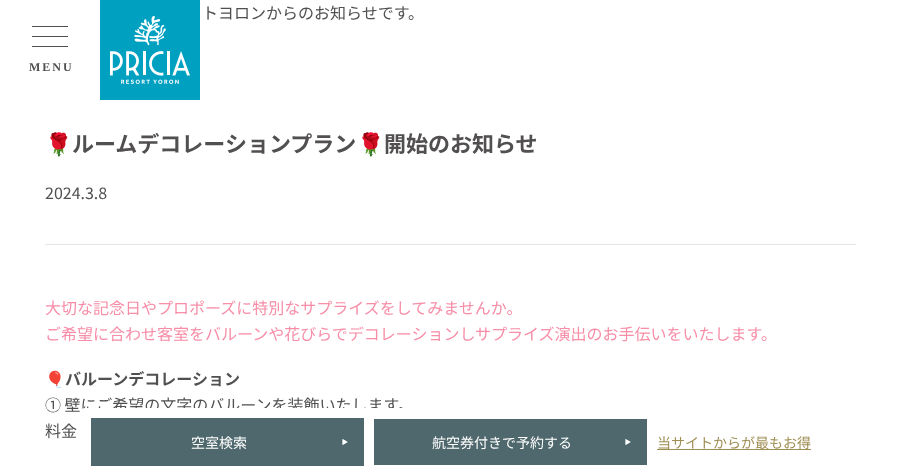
<?xml version="1.0" encoding="UTF-8"?>
<svg xmlns="http://www.w3.org/2000/svg" xmlns:xlink="http://www.w3.org/1999/xlink" width="901" height="476">
  <rect width="100%" height="100%" fill="#ffffff" />
  <rect x="45" y="244" width="811" height="1" fill="#e5e5e5" />
  <rect x="32" y="36" width="36" height="1" fill="#514f50" />
  <rect x="32" y="26" width="36" height="1" fill="#514f50" />
  <rect x="32" y="46" width="36" height="1" fill="#514f50" />
  <rect x="100" width="100" height="100" fill="#00a0c1" />
  <image x="110" y="16" width="80" height="68" xlink:href="image2.png" />
  <text x="202" y="19" style="font-family: Noto Sans JP; font-size: 16px; fill: #514f50">トヨロンからのお知らせです。</text>
  <text x="45" y="152" style="font-family: Noto Color Emoji; font-size: 22px; font-weight: bold; fill: #514f50">🌹</text>
  <text x="72" y="152" style="font-family: Noto Sans JP; font-size: 22px; font-weight: bold; fill: #514f50">ルームデコレーションプラン</text>
  <text x="357" y="152" style="font-family: Noto Color Emoji; font-size: 22px; font-weight: bold; fill: #514f50">🌹</text>
  <text x="384" y="152" style="font-family: Noto Sans JP; font-size: 22px; font-weight: bold; fill: #514f50">開始のお知らせ</text>
  <text x="45" y="199" style="font-family: Noto Sans JP; font-size: 16px; fill: #514f50">2024.3.8</text>
  <text x="45" y="314" style="font-family: Noto Sans JP; font-size: 16px; fill: #f78da7">大切な記念日やプロポーズに特別なサプライズをしてみませんか。</text>
  <text x="45" y="340" style="font-family: Noto Sans JP; font-size: 16px; fill: #f78da7">ご希望に合わせ客室をバルーンや花びらでデコレーションしサプライズ演出のお手伝いをいたします。</text>
  <text x="45" y="385" style="font-family: Noto Color Emoji; font-size: 16px; fill: #514f50">🎈</text>
  <text x="65" y="385" style="font-family: Noto Sans JP; font-size: 16px; font-weight: bold; fill: #514f50">バルーンデコレーション</text>
  <text x="45" y="411" style="font-family: Noto Sans JP; font-size: 16px; fill: #514f50">① 壁にご希望の文字のバルーンを装飾いたします。</text>
  <text x="45" y="437" style="font-family: Noto Sans JP; font-size: 16px; fill: #514f50">料金</text>
  <rect x="81" y="408" width="740" height="68" rx="4" fill="#ffffff" />
  <rect x="91" y="418" width="273" height="48" fill="#4f686d" />
  <text x="191" y="448" style="font-family: Noto Sans JP; font-size: 14px; fill: #ffffff">空室検索</text>
  <image x="342" y="439" width="6" height="6" xlink:href="image1.png" />
  <rect x="374" y="419" width="273" height="46" fill="#4f686d" />
  <text x="432" y="448" style="font-family: Noto Sans JP; font-size: 14px; fill: #ffffff">航空券付きで予約する</text>
  <image x="625" y="439" width="6" height="6" xlink:href="image1.png" />
  <rect x="657" y="449" width="154" height="1" fill="#9f8e54" />
  <text x="657" y="448" style="font-family: Noto Sans JP; font-size: 14px; fill: #9f8e54">当サイトからが最もお得</text>
  <text x="29" y="71" style="font-family: Liberation Serif; font-size: 12px; font-weight: bold; letter-spacing: 2px; fill: #514f50">MENU</text>
</svg>
